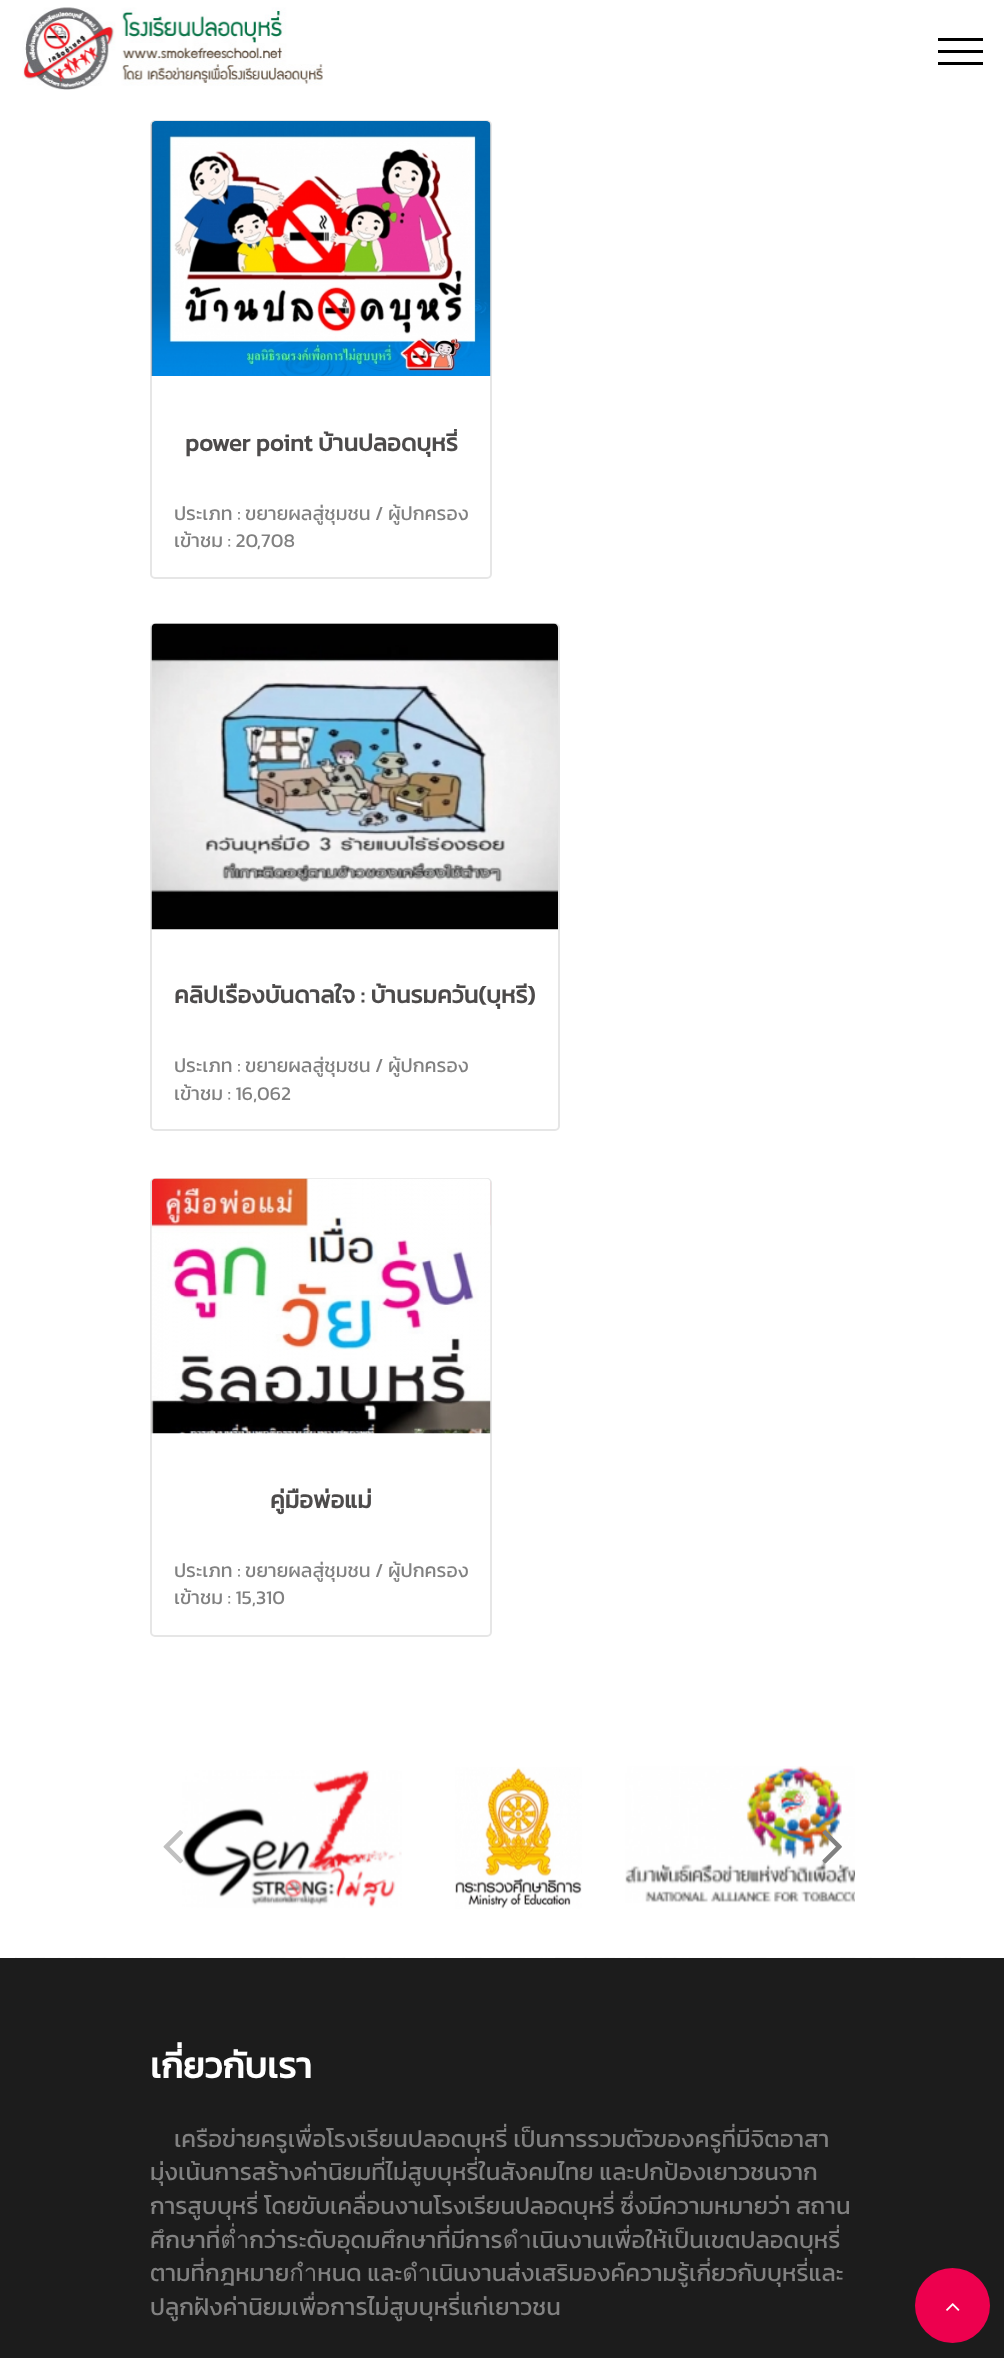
<?xml version="1.0" encoding="UTF-8"?>
<svg xmlns="http://www.w3.org/2000/svg" xmlns:xlink="http://www.w3.org/1999/xlink" width="1004" height="2358">
  <defs>
    <clipPath id="clip1"><rect x="174" y="429" width="294" height="48" /></clipPath>
    <clipPath id="clip2"><rect x="174" y="528" width="294" height="27" /></clipPath>
    <clipPath id="clip3"><rect x="174" y="983" width="362" height="48" /></clipPath>
    <clipPath id="clip4"><rect x="174" y="1080" width="362" height="27" /></clipPath>
    <clipPath id="clip5"><rect x="174" y="1586" width="294" height="27" /></clipPath>
  </defs>
  <rect width="100%" height="100%" fill="#ffffff" />
  <image x="22" y="7" width="301" height="83" xlink:href="image1.png" />
  <rect x="938" y="38" width="45" height="3" fill="#000000" />
  <rect x="938" y="62" width="45" height="3" fill="#000000" />
  <rect x="938" y="50" width="45" height="3" fill="#000000" />
  <rect x="151" y="121" width="340" height="457" rx="4" fill="none" stroke="#e6e6e6" stroke-width="2" />
  <image x="151" y="121" width="340" height="255" xlink:href="image2.png" />
  <rect x="151" y="624" width="408" height="506" rx="4" fill="none" stroke="#e6e6e6" stroke-width="2" />
  <image x="151" y="623" width="407" height="307" xlink:href="image3.png" />
  <rect x="151" y="1179" width="340" height="457" rx="4" fill="none" stroke="#e6e6e6" stroke-width="2" />
  <image x="151" y="1178" width="340" height="256" xlink:href="image4.png" />
  <image x="182" y="1770" width="220" height="138" xlink:href="image5.png" />
  <image x="455" y="1767" width="127" height="142" xlink:href="image6.png" />
  <image x="625" y="1766" width="230" height="137" xlink:href="image7.png" />
  <image x="163" y="1830" width="20" height="34" xlink:href="image8.png" />
  <image x="822" y="1830" width="20" height="34" xlink:href="image9.png" />
  <rect y="1958" width="1004" height="400" fill="#1c1c1c" />
  <image x="15" y="1957" width="946" height="1" xlink:href="image10.png" />
  <circle cx="952.5" cy="2305.5" r="37.5" fill="#ed004e" />
  <image x="946" y="2303" width="14" height="8" xlink:href="image11.png" />
  <g clip-path="url(#clip1)">
    <text x="185" y="451" style="font-family: Kanit; font-size: 24px; font-weight: bold; fill: #4d4b4b">power point บ้านปลอดบุหรี่</text>
  </g>
  <text x="174" y="520" style="font-family: Kanit; font-size: 19.5px; fill: #818181">ประเภท : ขยายผลสู่ชุมชน / ผู้ปกครอง</text>
  <g clip-path="url(#clip2)">
    <text x="174" y="547" style="font-family: Kanit; font-size: 19.5px; fill: #818181">เข้าชม : 20,708</text>
  </g>
  <g clip-path="url(#clip3)">
    <text x="174" y="1003" style="font-family: Kanit; font-size: 24px; font-weight: bold; fill: #4d4b4b">คลิปเรื่องบันดาลใจ : บ้านรมควัน(บุหรี่)</text>
  </g>
  <text x="174" y="1072" style="font-family: Kanit; font-size: 19.5px; fill: #818181">ประเภท : ขยายผลสู่ชุมชน / ผู้ปกครอง</text>
  <g clip-path="url(#clip4)">
    <text x="174" y="1100" style="font-family: Kanit; font-size: 19.5px; fill: #818181">เข้าชม : 16,062</text>
  </g>
  <text x="270" y="1508" style="font-family: Kanit; font-size: 24px; font-weight: bold; fill: #4d4b4b">คู่มือพ่อแม่</text>
  <text x="174" y="1577" style="font-family: Kanit; font-size: 19.5px; fill: #818181">ประเภท : ขยายผลสู่ชุมชน / ผู้ปกครอง</text>
  <g clip-path="url(#clip5)">
    <text x="174" y="1604" style="font-family: Kanit; font-size: 19.5px; fill: #818181">เข้าชม : 15,310</text>
  </g>
  <text x="150" y="2078" style="font-family: Kanit; font-size: 36px; font-weight: bold; fill: #ffffff">เกี่ยวกับเรา</text>
  <text x="174" y="2147" style="font-family: Kanit; font-size: 24px; fill: #818181">เครือข่ายครูเพื่อโรงเรียนปลอดบุหรี่ เป็นการรวมตัวของครูที่มีจิตอาสา</text>
  <text x="150" y="2180" style="font-family: Kanit; font-size: 24px; fill: #818181">มุ่งเน้นการสร้างค่านิยมที่ไม่สูบบุหรี่ในสังคมไทย และปกป้องเยาวชนจาก</text>
  <text x="150" y="2214" style="font-family: Kanit; font-size: 24px; fill: #818181">การสูบบุหรี่ โดยขับเคลื่อนงานโรงเรียนปลอดบุหรี่ ซึ่งมีความหมายว่า สถาน</text>
  <text x="150" y="2248" style="font-family: Kanit; font-size: 24px; fill: #818181">ศึกษาที่ต่ำกว่าระดับอุดมศึกษาที่มีการดำเนินงานเพื่อให้เป็นเขตปลอดบุหรี่</text>
  <text x="150" y="2281" style="font-family: Kanit; font-size: 24px; fill: #818181">ตามที่กฎหมายกำหนด และดำเนินงานส่งเสริมองค์ความรู้เกี่ยวกับบุหรี่และ</text>
  <text x="150" y="2315" style="font-family: Kanit; font-size: 24px; fill: #818181">ปลูกฝังค่านิยมเพื่อการไม่สูบบุหรี่แก่เยาวชน</text>
</svg>
